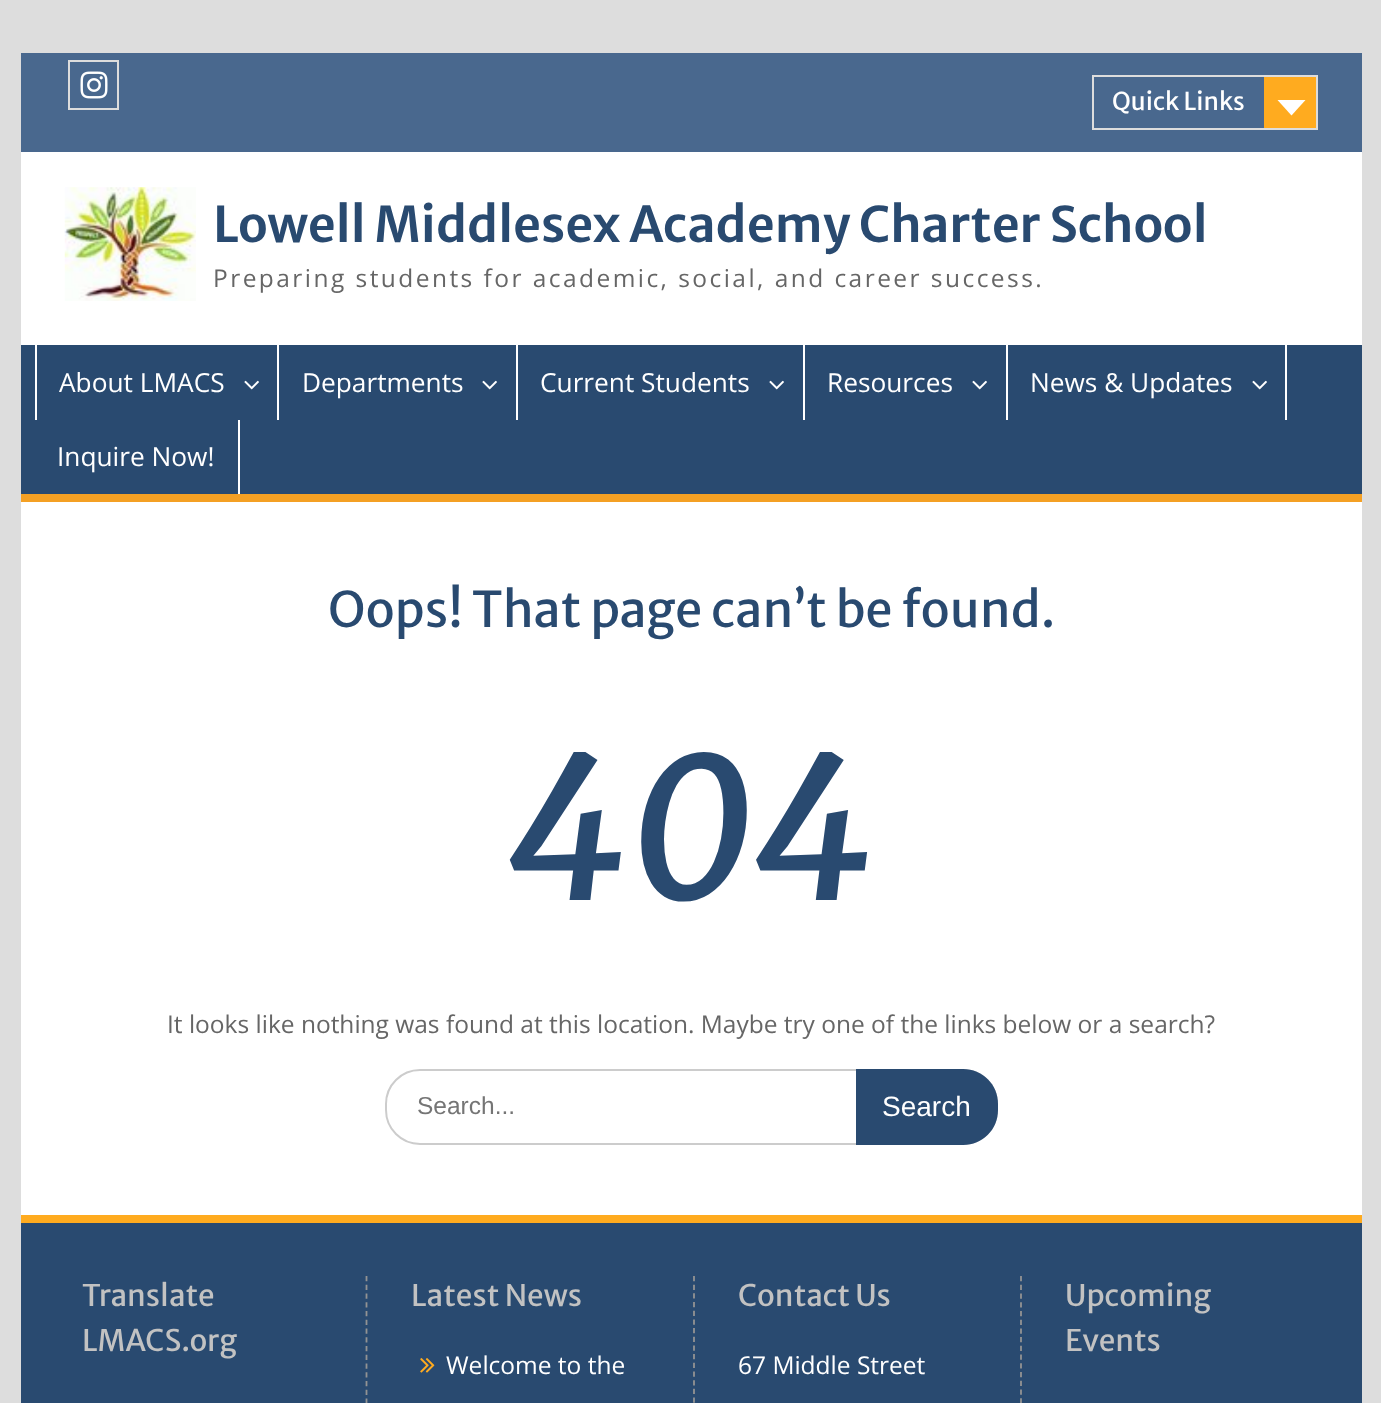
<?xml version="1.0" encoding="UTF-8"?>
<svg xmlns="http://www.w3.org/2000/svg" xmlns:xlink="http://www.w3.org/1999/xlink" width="1381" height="1403">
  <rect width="100%" height="100%" fill="#dddddd" />
  <rect x="21" y="152" width="1341" height="1063" fill="#ffffff" />
  <rect x="21" y="53" width="1341" height="99" fill="#49688e" />
  <rect x="69" y="61" width="49" height="48" fill="none" stroke="#dddddd" stroke-width="2" />
  <image x="80" y="71" width="28" height="28" xlink:href="image1.png" />
  <rect x="1093" y="76" width="224" height="53" fill="none" stroke="#dddddd" stroke-width="2" />
  <rect x="1264" y="77" width="52" height="51" fill="#ffab1f" />
  <path d="M 1277.5 100 h 28 l -14 15.5 z" fill="#ffffff" />
  <image x="64" y="187" width="132" height="114" xlink:href="image2.png" />
  <rect x="21" y="345" width="1341" height="149" fill="#294a70" />
  <rect x="21" y="494" width="1341" height="8" fill="#f4a024" />
  <rect x="277" y="345" width="2" height="75" fill="#ffffff" />
  <rect x="35" y="345" width="2" height="75" fill="#ffffff" />
  <image x="244" y="380" width="15" height="10" xlink:href="image3.png" />
  <rect x="516" y="345" width="2" height="75" fill="#ffffff" />
  <image x="482" y="380" width="15" height="10" xlink:href="image3.png" />
  <rect x="803" y="345" width="2" height="75" fill="#ffffff" />
  <image x="769" y="380" width="15" height="10" xlink:href="image3.png" />
  <rect x="1006" y="345" width="2" height="75" fill="#ffffff" />
  <image x="972" y="380" width="15" height="10" xlink:href="image3.png" />
  <rect x="1285" y="345" width="2" height="75" fill="#ffffff" />
  <image x="1252" y="380" width="15" height="10" xlink:href="image3.png" />
  <rect x="238" y="420" width="2" height="74" fill="#ffffff" />
  <rect x="386" y="1070" width="611" height="74" rx="34" fill="none" stroke="#cccccc" stroke-width="2" />
  <path d="M 856 1069 h 107 c 19.5 0 35 15.5 35 35 v 6 c 0 19.5 -15.5 35 -35 35 h -107 z" fill="#294a70" />
  <rect x="21" y="1223" width="1341" height="180" fill="#294a70" />
  <rect x="21" y="1215" width="1341" height="8" fill="#ffab1f" />
  <path d="M 366.5 1276 v 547.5" fill="none" stroke="#939393" stroke-width="1.8" stroke-dasharray="5.25 3.5" />
  <image x="420" y="1358" width="15" height="15" xlink:href="image4.png" />
  <path d="M 694 1276 v 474" fill="none" stroke="#939393" stroke-width="1.8" stroke-dasharray="5.25 3.43" />
  <path d="M 1021 1276 v 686" fill="none" stroke="#939393" stroke-width="1.8" stroke-dasharray="5.25 3.48" />
  <text x="1112" y="110" style="font-family: Merriweather Sans; font-size: 24.5px; fill: #ffffff">Quick Links</text>
  <text x="213" y="242" style="font-family: Merriweather Sans; font-size: 49px; font-weight: 600; fill: #294a70">Lowell Middlesex Academy Charter School</text>
  <text x="213" y="287" style="font-family: Open Sans; font-size: 24.5px; letter-spacing: 2.45px; fill: #666666">Preparing students for academic, social, and career success.</text>
  <text x="59" y="392" style="font-family: Open Sans; font-size: 26.25px; fill: #ffffff">About LMACS</text>
  <text x="302" y="392" style="font-family: Open Sans; font-size: 26.25px; fill: #ffffff">Departments</text>
  <text x="540" y="392" style="font-family: Open Sans; font-size: 26.25px; fill: #ffffff">Current Students</text>
  <text x="827" y="392" style="font-family: Open Sans; font-size: 26.25px; fill: #ffffff">Resources</text>
  <text x="1030" y="392" style="font-family: Open Sans; font-size: 26.25px; fill: #ffffff">News &amp; Updates</text>
  <text x="57" y="466" style="font-family: Open Sans; font-size: 26.25px; fill: #ffffff">Inquire Now!</text>
  <text x="328" y="627" style="font-family: Merriweather Sans; font-size: 49px; fill: #294a70">Oops! That page can’t be found.</text>
  <text x="507" y="900" style="font-family: Merriweather Sans; font-size: 198px; font-style: italic; fill: #294a70">404</text>
  <text x="167" y="1033" style="font-family: Open Sans; font-size: 24.5px; fill: #666666">It looks like nothing was found at this location. Maybe try one of the links below or a search?</text>
  <text x="417" y="1114" style="font-family: Liberation Sans; font-size: 24.5px; fill: #757575">Search...</text>
  <text x="882" y="1116" style="font-family: Liberation Sans; font-size: 28px; fill: #ffffff">Search</text>
  <text x="82" y="1306" style="font-family: Merriweather Sans; font-size: 29.75px; fill: #c2c2c2">Translate</text>
  <text x="82" y="1351" style="font-family: Merriweather Sans; font-size: 29.75px; fill: #c2c2c2">LMACS.org</text>
  <text x="411" y="1306" style="font-family: Merriweather Sans; font-size: 29.75px; fill: #c2c2c2">Latest News</text>
  <text x="446" y="1374" style="font-family: Open Sans; font-size: 24.5px; fill: #ffffff">Welcome to the</text>
  <text x="738" y="1306" style="font-family: Merriweather Sans; font-size: 29.75px; fill: #c2c2c2">Contact Us</text>
  <text x="738" y="1374" style="font-family: Open Sans; font-size: 24.5px; fill: #ffffff">67 Middle Street</text>
  <text x="1065" y="1306" style="font-family: Merriweather Sans; font-size: 29.75px; fill: #c2c2c2">Upcoming</text>
  <text x="1065" y="1351" style="font-family: Merriweather Sans; font-size: 29.75px; fill: #c2c2c2">Events</text>
</svg>
